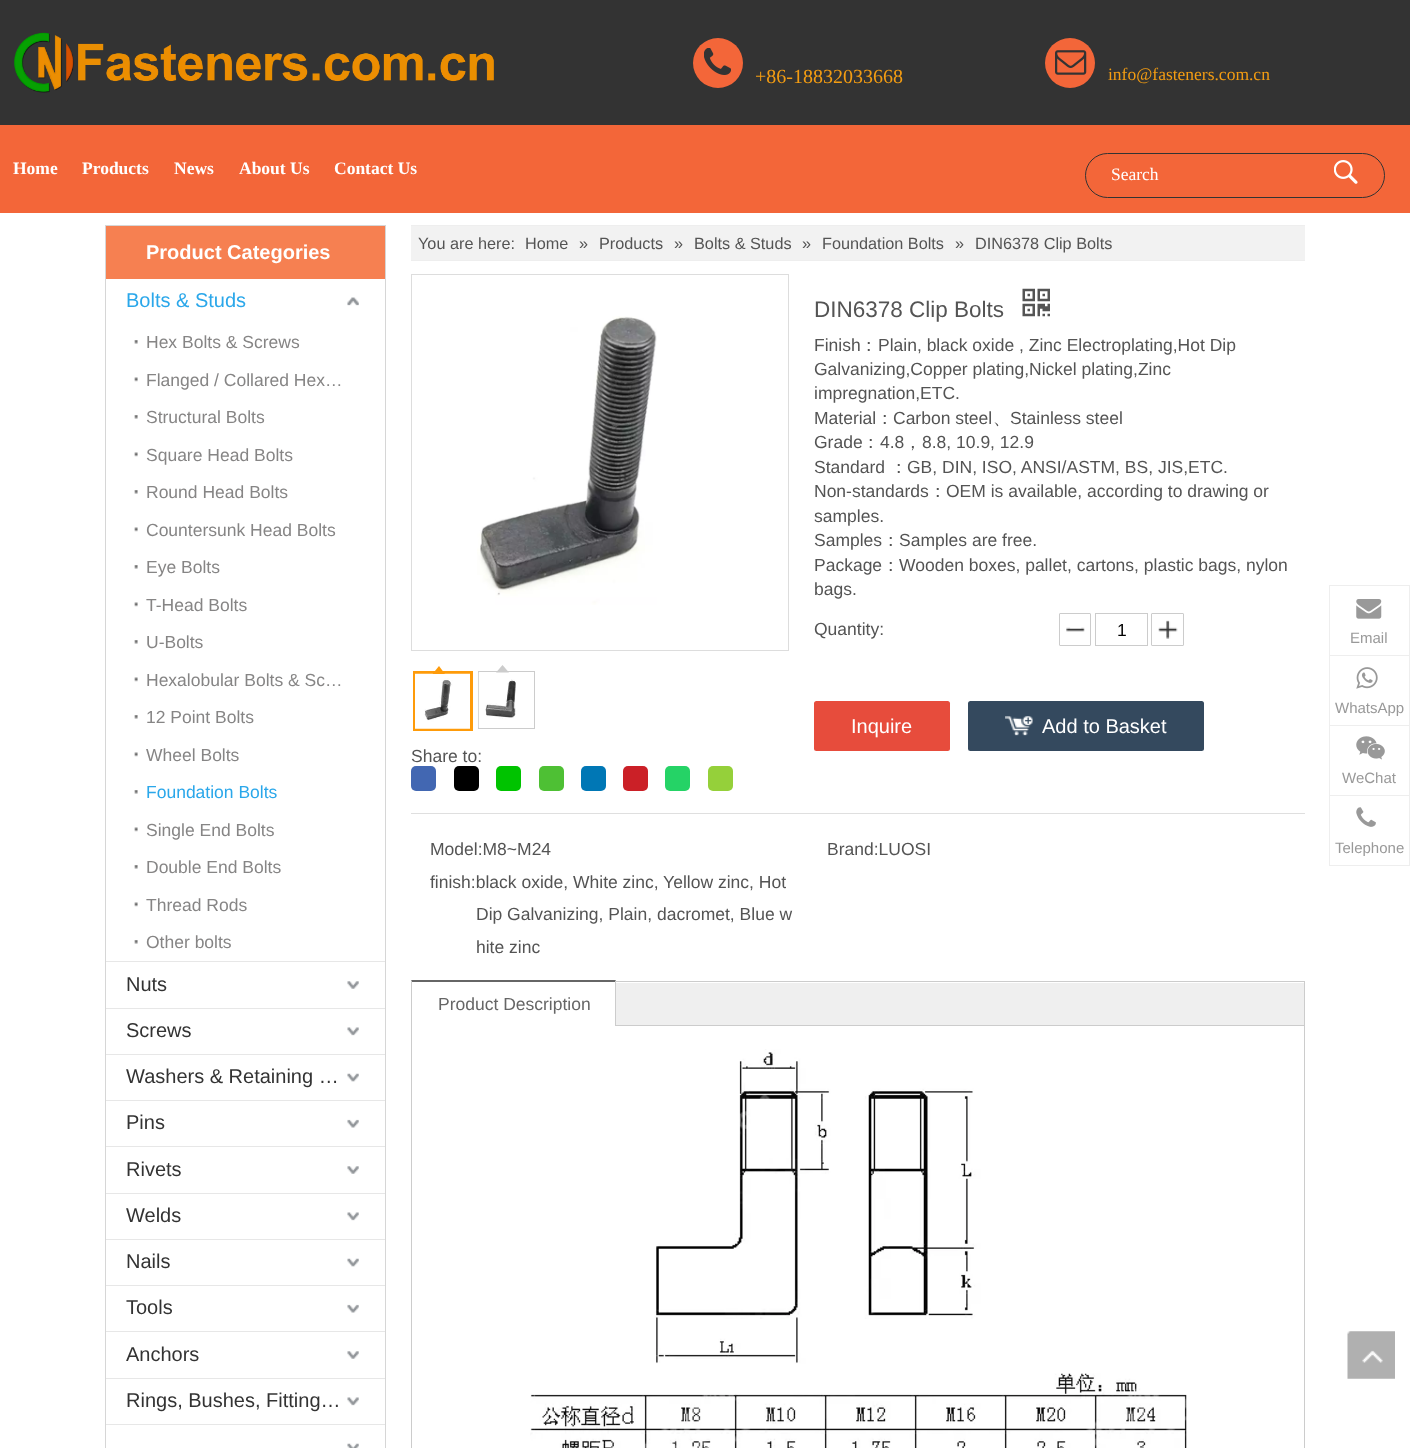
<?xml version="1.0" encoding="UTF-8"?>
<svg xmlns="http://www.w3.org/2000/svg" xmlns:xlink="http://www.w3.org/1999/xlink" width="1410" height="1448">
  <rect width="100%" height="100%" fill="#ffffff" />
  <rect width="1410" height="125" fill="#333333" />
  <image x="14" y="32" width="480" height="61" xlink:href="image1.png" />
  <rect y="125" width="1410" height="88" fill="#f36639" />
  <circle cx="718" cy="63" r="25" fill="#f36639" />
  <image x="704" y="48" width="27" height="27" xlink:href="image2.png" />
  <circle cx="1070" cy="63" r="25" fill="#f36639" />
  <image x="1055" y="50" width="32" height="25" xlink:href="image3.png" />
  <rect x="1085.5" y="153.5" width="299" height="44" rx="22" fill="none" stroke="#333333" />
  <image x="1334" y="160" width="24" height="24" xlink:href="image4.png" />
  <rect x="105.5" y="225.5" width="280" height="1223" fill="none" stroke="#d6d6d6" />
  <rect x="106" y="226" width="279" height="53" fill="#f68051" />
  <image x="347" y="297" width="12" height="9" xlink:href="image5.png" />
  <image x="134" y="340" width="4" height="4" xlink:href="image6.png" />
  <image x="134" y="377" width="4" height="5" xlink:href="image7.png" />
  <image x="134" y="415" width="4" height="4" xlink:href="image6.png" />
  <image x="134" y="452" width="4" height="5" xlink:href="image7.png" />
  <image x="134" y="490" width="4" height="4" xlink:href="image6.png" />
  <image x="134" y="527" width="4" height="5" xlink:href="image7.png" />
  <image x="134" y="565" width="4" height="4" xlink:href="image6.png" />
  <image x="134" y="602" width="4" height="5" xlink:href="image7.png" />
  <image x="134" y="640" width="4" height="4" xlink:href="image6.png" />
  <image x="134" y="677" width="4" height="5" xlink:href="image7.png" />
  <image x="134" y="715" width="4" height="4" xlink:href="image6.png" />
  <image x="134" y="752" width="4" height="5" xlink:href="image7.png" />
  <image x="134" y="790" width="4" height="4" xlink:href="image6.png" />
  <image x="134" y="827" width="4" height="5" xlink:href="image7.png" />
  <image x="134" y="865" width="4" height="4" xlink:href="image6.png" />
  <image x="134" y="902" width="4" height="5" xlink:href="image7.png" />
  <image x="134" y="940" width="4" height="4" xlink:href="image6.png" />
  <rect x="106" y="961" width="279" height="1" fill="#e7e7e7" />
  <image x="347" y="981" width="12" height="8" xlink:href="image8.png" />
  <rect x="106" y="1008" width="279" height="1" fill="#e7e7e7" />
  <image x="347" y="1027" width="12" height="9" xlink:href="image9.png" />
  <rect x="106" y="1054" width="279" height="1" fill="#e7e7e7" />
  <image x="347" y="1073" width="12" height="9" xlink:href="image10.png" />
  <rect x="106" y="1100" width="279" height="1" fill="#e7e7e7" />
  <image x="347" y="1119" width="12" height="9" xlink:href="image11.png" />
  <rect x="106" y="1146" width="279" height="1" fill="#e7e7e7" />
  <image x="347" y="1166" width="12" height="8" xlink:href="image8.png" />
  <rect x="106" y="1193" width="279" height="1" fill="#e7e7e7" />
  <image x="347" y="1212" width="12" height="9" xlink:href="image9.png" />
  <rect x="106" y="1239" width="279" height="1" fill="#e7e7e7" />
  <image x="347" y="1258" width="12" height="9" xlink:href="image10.png" />
  <rect x="106" y="1285" width="279" height="1" fill="#e7e7e7" />
  <image x="347" y="1304" width="12" height="9" xlink:href="image11.png" />
  <rect x="106" y="1331" width="279" height="1" fill="#e7e7e7" />
  <image x="347" y="1351" width="12" height="8" xlink:href="image8.png" />
  <rect x="106" y="1378" width="279" height="1" fill="#e7e7e7" />
  <image x="347" y="1397" width="12" height="9" xlink:href="image9.png" />
  <rect x="106" y="1424" width="279" height="1" fill="#e7e7e7" />
  <image x="347" y="1443" width="12" height="5" xlink:href="image12.png" />
  <rect x="411" y="226" width="894" height="34" fill="#f2f2f2" />
  <rect x="411" y="225" width="894" height="1" fill="#eeeeee" />
  <rect x="411" y="260" width="894" height="1" fill="#eeeeee" />
  <image x="1022" y="288" width="28" height="29" xlink:href="image13.png" />
  <image x="1066" y="627" width="19" height="5" xlink:href="image14.png" />
  <rect x="1059.5" y="613.5" width="31" height="32" rx="0.5" fill="none" stroke="#cccccc" />
  <rect x="1095.5" y="613.5" width="52" height="32" fill="none" stroke="#cccccc" />
  <image x="1158" y="620" width="20" height="19" xlink:href="image15.png" />
  <rect x="1151.5" y="613.5" width="32" height="32" rx="0.5" fill="none" stroke="#cccccc" />
  <rect x="814" y="701" width="136" height="50" rx="2.5" fill="#e74c3c" />
  <rect x="968" y="701" width="236" height="50" rx="2.5" fill="#34495e" />
  <image x="1005" y="716" width="28" height="20" xlink:href="image16.png" />
  <rect x="411.5" y="274.5" width="377" height="376" fill="none" stroke="#dddddd" />
  <image x="477" y="316" width="180" height="289" xlink:href="image17.png" />
  <rect x="414.5" y="672.5" width="57" height="57" fill="none" stroke="#fe9b0a" stroke-width="3" />
  <image x="415" y="673" width="55" height="56" xlink:href="image18.png" />
  <path d="M 445 674 h -12.5 l 6.5 -8 z" fill="#fe9b0a" />
  <rect x="478.5" y="671.5" width="56" height="57" fill="none" stroke="#cccccc" />
  <image x="478" y="672" width="38" height="56" xlink:href="image19.png" />
  <path d="M 509 672.5 h -13 l 6.5 -7.5 z" fill="#cccccc" />
  <rect x="411" y="766" width="25" height="25" rx="5" fill="#4267b2" />
  <rect x="454" y="766" width="25" height="25" rx="5" fill="#000000" />
  <rect x="496" y="766" width="25" height="25" rx="5" fill="#00c300" />
  <rect x="539" y="766" width="25" height="25" rx="5" fill="#4ec034" />
  <rect x="581" y="766" width="25" height="25" rx="5" fill="#0077b5" />
  <rect x="623" y="766" width="25" height="25" rx="5" fill="#cb2027" />
  <rect x="665" y="766" width="25" height="25" rx="5" fill="#25d366" />
  <rect x="708" y="766" width="25" height="25" rx="5" fill="#95d03a" />
  <rect x="411" y="813" width="894" height="1" fill="#dfdfdf" />
  <rect x="411.5" y="981.5" width="893" height="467" fill="none" stroke="#cccccc" />
  <rect x="616" y="983" width="688" height="42" fill="#efefef" />
  <rect x="616" y="1025" width="688" height="1" fill="#cccccc" />
  <rect x="411" y="981" width="205" height="45" fill="#ffffff" />
  <path d="M 411 980 h 205 l -1 2 h -203 z" fill="#666666" />
  <path d="M 616 980 v 46 h -1 v -44 z" fill="#cccccc" />
  <path d="M 411 1026 v -46 l 1 2 v 44 z" fill="#cccccc" />
  <image x="530" y="1049" width="657" height="399" xlink:href="image20.png" />
  <rect x="1329" y="585" width="81" height="1" fill="#eeeeee" />
  <rect x="1409" y="585" width="1" height="70" fill="#eeeeee" />
  <rect x="1329" y="585" width="1" height="70" fill="#eeeeee" />
  <image x="1356" y="599" width="26" height="20" xlink:href="image21.png" />
  <rect x="1329" y="655" width="81" height="1" fill="#eeeeee" />
  <rect x="1409" y="655" width="1" height="70" fill="#eeeeee" />
  <rect x="1329" y="655" width="1" height="70" fill="#eeeeee" />
  <image x="1356" y="667" width="22" height="22" xlink:href="image22.png" />
  <rect x="1329" y="725" width="81" height="1" fill="#eeeeee" />
  <rect x="1409" y="725" width="1" height="70" fill="#eeeeee" />
  <rect x="1329" y="725" width="1" height="70" fill="#eeeeee" />
  <image x="1356" y="736" width="29" height="24" xlink:href="image23.png" />
  <rect x="1329.5" y="795.5" width="80" height="70" fill="none" stroke="#eeeeee" />
  <image x="1356" y="807" width="20" height="20" xlink:href="image24.png" />
  <image x="1347" y="1331" width="48" height="48" xlink:href="image25.png" />
  <text x="755" y="83" style="font-family: Liberation Serif; font-size: 20px; fill: #f39c12">+86-18832033668</text>
  <text x="1108" y="80" style="font-family: Liberation Serif; font-size: 17.5px; fill: #f39c12">info@fasteners.com.cn</text>
  <text x="13" y="174" style="font-family: Liberation Serif; font-size: 17.5px; font-weight: bold; fill: #ffffff">Home</text>
  <text x="82" y="174" style="font-family: Liberation Serif; font-size: 17.5px; font-weight: bold; fill: #ffffff">Products</text>
  <text x="174" y="174" style="font-family: Liberation Serif; font-size: 17.5px; font-weight: bold; fill: #ffffff">News</text>
  <text x="239" y="174" style="font-family: Liberation Serif; font-size: 17.5px; font-weight: bold; fill: #ffffff">About Us</text>
  <text x="334" y="174" style="font-family: Liberation Serif; font-size: 17.5px; font-weight: bold; fill: #ffffff">Contact Us</text>
  <text x="1111" y="180" style="font-family: Liberation Serif; font-size: 17.5px; fill: #ffffff">Search</text>
  <text x="146" y="259" style="font-family: Liberation Sans; font-size: 20px; font-weight: bold; fill: #ffffff">Product Categories</text>
  <text x="126" y="307" style="font-family: Liberation Sans; font-size: 20px; fill: #2aa7ea">Bolts &amp; Studs</text>
  <text x="146" y="348" style="font-family: Liberation Sans; font-size: 17.5px; fill: #868585">Hex Bolts &amp; Screws</text>
  <text x="146" y="386" style="font-family: Liberation Sans; font-size: 17.5px; fill: #868585">Flanged / Collared Hex…</text>
  <text x="146" y="423" style="font-family: Liberation Sans; font-size: 17.5px; fill: #868585">Structural Bolts</text>
  <text x="146" y="461" style="font-family: Liberation Sans; font-size: 17.5px; fill: #868585">Square Head Bolts</text>
  <text x="146" y="498" style="font-family: Liberation Sans; font-size: 17.5px; fill: #868585">Round Head Bolts</text>
  <text x="146" y="536" style="font-family: Liberation Sans; font-size: 17.5px; fill: #868585">Countersunk Head Bolts</text>
  <text x="146" y="573" style="font-family: Liberation Sans; font-size: 17.5px; fill: #868585">Eye Bolts</text>
  <text x="146" y="611" style="font-family: Liberation Sans; font-size: 17.5px; fill: #868585">T-Head Bolts</text>
  <text x="146" y="648" style="font-family: Liberation Sans; font-size: 17.5px; fill: #868585">U-Bolts</text>
  <text x="146" y="686" style="font-family: Liberation Sans; font-size: 17.5px; fill: #868585">Hexalobular Bolts &amp; Sc…</text>
  <text x="146" y="723" style="font-family: Liberation Sans; font-size: 17.5px; fill: #868585">12 Point Bolts</text>
  <text x="146" y="761" style="font-family: Liberation Sans; font-size: 17.5px; fill: #868585">Wheel Bolts</text>
  <text x="146" y="798" style="font-family: Liberation Sans; font-size: 17.5px; fill: #2aa7ea">Foundation Bolts</text>
  <text x="146" y="836" style="font-family: Liberation Sans; font-size: 17.5px; fill: #868585">Single End Bolts</text>
  <text x="146" y="873" style="font-family: Liberation Sans; font-size: 17.5px; fill: #868585">Double End Bolts</text>
  <text x="146" y="911" style="font-family: Liberation Sans; font-size: 17.5px; fill: #868585">Thread Rods</text>
  <text x="146" y="948" style="font-family: Liberation Sans; font-size: 17.5px; fill: #868585">Other bolts</text>
  <text x="126" y="991" style="font-family: Liberation Sans; font-size: 20px; fill: #333333">Nuts</text>
  <text x="126" y="1037" style="font-family: Liberation Sans; font-size: 20px; fill: #333333">Screws</text>
  <text x="126" y="1083" style="font-family: Liberation Sans; font-size: 20px; fill: #333333">Washers &amp; Retaining …</text>
  <text x="126" y="1129" style="font-family: Liberation Sans; font-size: 20px; fill: #333333">Pins</text>
  <text x="126" y="1176" style="font-family: Liberation Sans; font-size: 20px; fill: #333333">Rivets</text>
  <text x="126" y="1222" style="font-family: Liberation Sans; font-size: 20px; fill: #333333">Welds</text>
  <text x="126" y="1268" style="font-family: Liberation Sans; font-size: 20px; fill: #333333">Nails</text>
  <text x="126" y="1314" style="font-family: Liberation Sans; font-size: 20px; fill: #333333">Tools</text>
  <text x="126" y="1361" style="font-family: Liberation Sans; font-size: 20px; fill: #333333">Anchors</text>
  <text x="126" y="1407" style="font-family: Liberation Sans; font-size: 20px; fill: #333333">Rings, Bushes, Fitting…</text>
  <text x="418" y="249" style="font-family: Liberation Sans; font-size: 16.25px; fill: #545454">You are here:</text>
  <text x="525" y="249" style="font-family: Liberation Sans; font-size: 16.25px; fill: #545454">Home</text>
  <text x="579" y="249" style="font-family: Liberation Sans; font-size: 16.25px; fill: #545454">»</text>
  <text x="599" y="249" style="font-family: Liberation Sans; font-size: 16.25px; fill: #545454">Products</text>
  <text x="674" y="249" style="font-family: Liberation Sans; font-size: 16.25px; fill: #545454">»</text>
  <text x="694" y="249" style="font-family: Liberation Sans; font-size: 16.25px; fill: #545454">Bolts &amp; Studs</text>
  <text x="802" y="249" style="font-family: Liberation Sans; font-size: 16.25px; fill: #545454">»</text>
  <text x="822" y="249" style="font-family: Liberation Sans; font-size: 16.25px; fill: #545454">Foundation Bolts</text>
  <text x="955" y="249" style="font-family: Liberation Sans; font-size: 16.25px; fill: #545454">»</text>
  <text x="975" y="249" style="font-family: Liberation Sans; font-size: 16.25px; fill: #545454">DIN6378 Clip Bolts</text>
  <text x="814" y="317" style="font-family: Liberation Sans; font-size: 22.5px; fill: #545454">DIN6378 Clip Bolts</text>
  <text x="814" y="351" style="font-family: Liberation Sans; font-size: 17.5px; fill: #545454">Finish</text>
  <text x="860" y="351" style="font-family: WenQuanYi Zen Hei; font-size: 17.5px; font-weight: 500; fill: #545454">：</text>
  <text x="878" y="351" style="font-family: Liberation Sans; font-size: 17.5px; fill: #545454">Plain, black oxide , Zinc Electroplating,Hot Dip</text>
  <text x="814" y="375" style="font-family: Liberation Sans; font-size: 17.5px; fill: #545454">Galvanizing,Copper plating,Nickel plating,Zinc</text>
  <text x="814" y="399" style="font-family: Liberation Sans; font-size: 17.5px; fill: #545454">impregnation,ETC.</text>
  <text x="814" y="424" style="font-family: Liberation Sans; font-size: 17.5px; fill: #545454">Material</text>
  <text x="876" y="424" style="font-family: WenQuanYi Zen Hei; font-size: 17.5px; font-weight: 500; fill: #545454">：</text>
  <text x="893" y="424" style="font-family: Liberation Sans; font-size: 17.5px; fill: #545454">Carbon steel</text>
  <text x="1010" y="424" style="font-family: Liberation Sans; font-size: 17.5px; fill: #545454">Stainless steel</text>
  <text x="993" y="424" style="font-family: WenQuanYi Zen Hei; font-size: 17.5px; font-weight: 500; fill: #545454">、</text>
  <text x="814" y="448" style="font-family: Liberation Sans; font-size: 17.5px; fill: #545454">Grade</text>
  <text x="862" y="448" style="font-family: WenQuanYi Zen Hei; font-size: 17.5px; font-weight: 500; fill: #545454">：</text>
  <text x="880" y="448" style="font-family: Liberation Sans; font-size: 17.5px; fill: #545454">4.8</text>
  <text x="922" y="448" style="font-family: Liberation Sans; font-size: 17.5px; fill: #545454">8.8, 10.9, 12.9</text>
  <text x="904" y="448" style="font-family: WenQuanYi Zen Hei; font-size: 17.5px; font-weight: 500; fill: #545454">，</text>
  <text x="814" y="473" style="font-family: Liberation Sans; font-size: 17.5px; fill: #545454">Standard</text>
  <text x="890" y="473" style="font-family: WenQuanYi Zen Hei; font-size: 17.5px; font-weight: 500; fill: #545454">：</text>
  <text x="907" y="473" style="font-family: Liberation Sans; font-size: 17.5px; fill: #545454">GB, DIN, ISO, ANSI/ASTM, BS, JIS,ETC.</text>
  <text x="814" y="497" style="font-family: Liberation Sans; font-size: 17.5px; fill: #545454">Non-standards</text>
  <text x="929" y="497" style="font-family: WenQuanYi Zen Hei; font-size: 17.5px; font-weight: 500; fill: #545454">：</text>
  <text x="946" y="497" style="font-family: Liberation Sans; font-size: 17.5px; fill: #545454">OEM is available, according to drawing or</text>
  <text x="814" y="522" style="font-family: Liberation Sans; font-size: 17.5px; fill: #545454">samples.</text>
  <text x="814" y="546" style="font-family: Liberation Sans; font-size: 17.5px; fill: #545454">Samples</text>
  <text x="882" y="546" style="font-family: WenQuanYi Zen Hei; font-size: 17.5px; font-weight: 500; fill: #545454">：</text>
  <text x="899" y="546" style="font-family: Liberation Sans; font-size: 17.5px; fill: #545454">Samples are free.</text>
  <text x="814" y="571" style="font-family: Liberation Sans; font-size: 17.5px; fill: #545454">Package</text>
  <text x="882" y="571" style="font-family: WenQuanYi Zen Hei; font-size: 17.5px; font-weight: 500; fill: #545454">：</text>
  <text x="899" y="571" style="font-family: Liberation Sans; font-size: 17.5px; fill: #545454">Wooden boxes, pallet, cartons, plastic bags, nylon</text>
  <text x="814" y="595" style="font-family: Liberation Sans; font-size: 17.5px; fill: #545454">bags.</text>
  <text x="814" y="635" style="font-family: Liberation Sans; font-size: 17.5px; fill: #545454">Quantity:</text>
  <text x="1117" y="636" style="font-family: Liberation Sans; font-size: 17.5px; fill: #000000">1</text>
  <text x="851" y="733" style="font-family: Liberation Sans; font-size: 20px; fill: #ffffff">Inquire</text>
  <text x="1042" y="733" style="font-family: Liberation Sans; font-size: 20px; fill: #ffffff">Add to Basket</text>
  <text x="411" y="762" style="font-family: Liberation Sans; font-size: 17.5px; fill: #545454">Share to:</text>
  <text x="430" y="855" style="font-family: Liberation Sans; font-size: 17.5px; fill: #545454">Model:M8~M24</text>
  <text x="827" y="855" style="font-family: Liberation Sans; font-size: 17.5px; fill: #545454">Brand:LUOSI</text>
  <text x="430" y="888" style="font-family: Liberation Sans; font-size: 17.5px; fill: #545454">finish:black oxide, White zinc, Yellow zinc, Hot</text>
  <text x="476" y="920" style="font-family: Liberation Sans; font-size: 17.5px; fill: #545454">Dip Galvanizing, Plain, dacromet, Blue w</text>
  <text x="476" y="953" style="font-family: Liberation Sans; font-size: 17.5px; fill: #545454">hite zinc</text>
  <text x="438" y="1010" style="font-family: Liberation Sans; font-size: 17.5px; fill: #666666">Product Description</text>
  <text x="1350" y="643" style="font-family: Liberation Sans; font-size: 15px; fill: #999999">Email</text>
  <text x="1335" y="713" style="font-family: Liberation Sans; font-size: 15px; fill: #999999">WhatsApp</text>
  <text x="1342" y="783" style="font-family: Liberation Sans; font-size: 15px; fill: #999999">WeChat</text>
  <text x="1335" y="853" style="font-family: Liberation Sans; font-size: 15px; fill: #999999">Telephone</text>
</svg>
